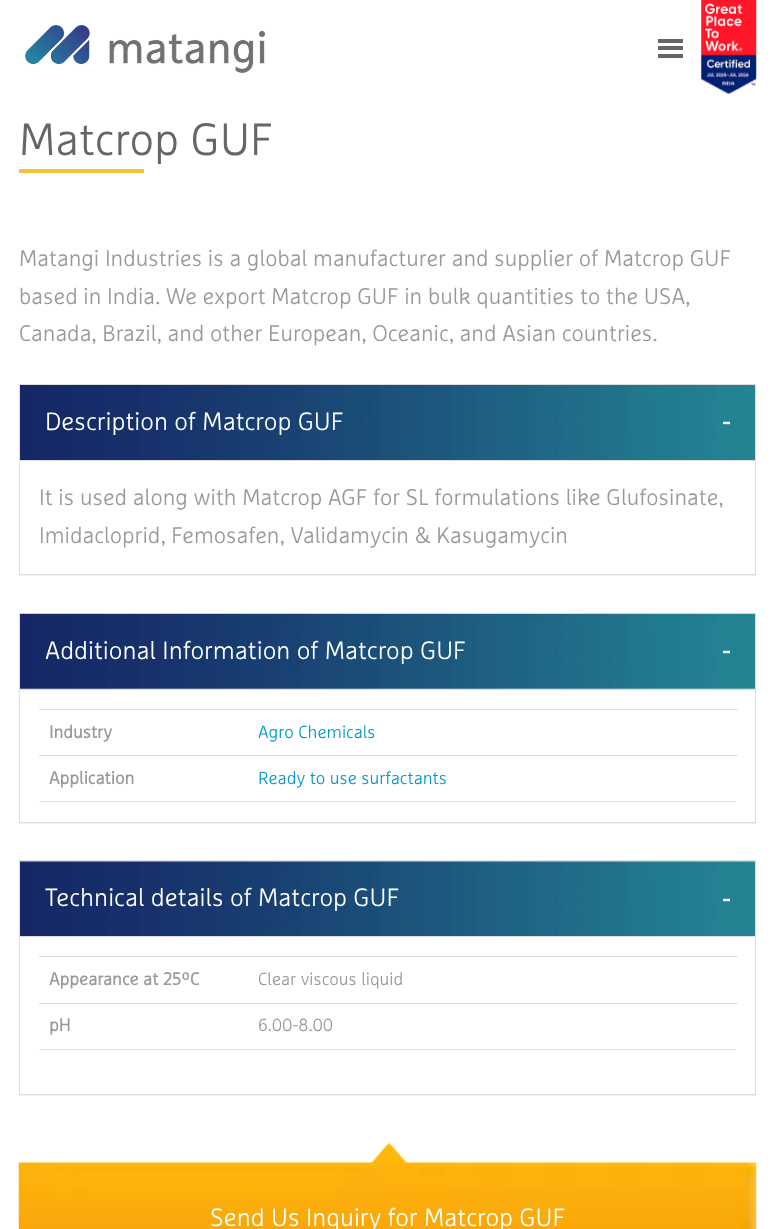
<?xml version="1.0" encoding="UTF-8"?>
<svg xmlns="http://www.w3.org/2000/svg" xmlns:xlink="http://www.w3.org/1999/xlink" width="774" height="1229">
  <defs>
    <clipPath id="clip1"><rect x="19" y="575" width="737" height="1" /></clipPath>
    <clipPath id="clip2"><rect x="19" y="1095" width="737" height="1" /></clipPath>
  </defs>
  <rect width="100%" height="100%" fill="#ffffff" />
  <image x="25" y="25" width="240" height="48" xlink:href="image1.png" />
  <rect x="658" y="46" width="25" height="4" fill="#666666" />
  <rect x="658" y="39" width="25" height="4" fill="#666666" />
  <rect x="658" y="54" width="25" height="4" fill="#666666" />
  <image x="701" y="0" width="56" height="94" xlink:href="image2.png" />
  <rect x="19" y="169" width="125" height="4" fill="#efc337" />
  <g clip-path="url(#clip1)">
    <rect x="19" y="385" width="737" height="191" fill="#000000" fill-opacity="0.05" filter="blur(0.5px)" />
  </g>
  <rect x="19.5" y="384.5" width="736" height="190" fill="none" stroke="#dddddd" />
  <image x="20" y="385" width="735" height="75" xlink:href="image3.png" />
  <rect x="20" y="460" width="735" height="1" fill="#dddddd" />
  <rect x="19" y="614" width="737" height="210" fill="#000000" fill-opacity="0.05" filter="blur(0.5px)" />
  <rect x="20" y="688" width="735" height="134" fill="#ffffff" />
  <rect x="19.5" y="613.5" width="736" height="209" fill="none" stroke="#dddddd" />
  <image x="20" y="613" width="735" height="76" xlink:href="image4.png" />
  <rect x="20" y="689" width="735" height="1" fill="#dddddd" />
  <rect x="39" y="801" width="697" height="1" fill="#e4e4e4" />
  <rect x="39" y="709" width="699" height="1" fill="#dddddd" />
  <rect x="39" y="755" width="699" height="1" fill="#dddddd" />
  <g clip-path="url(#clip2)">
    <rect x="19" y="861" width="737" height="235" fill="#000000" fill-opacity="0.05" filter="blur(0.5px)" />
  </g>
  <rect x="19.5" y="860.5" width="736" height="234" fill="none" stroke="#dddddd" />
  <image x="20" y="861" width="735" height="75" xlink:href="image5.png" />
  <rect x="20" y="936" width="735" height="1" fill="#dddddd" />
  <rect x="39" y="1049" width="697" height="1" fill="#e4e4e4" />
  <rect x="39" y="956" width="699" height="1" fill="#dddddd" />
  <rect x="39" y="1003" width="699" height="1" fill="#dddddd" />
  <image x="18" y="1162" width="739" height="67" xlink:href="image6.png" />
  <image x="370" y="1142" width="38" height="23" xlink:href="image7.png" />
  <text x="19" y="155" style="font-family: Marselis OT; font-size: 45px; font-weight: 300; fill: #666666">Matcrop GUF</text>
  <text x="19" y="266" style="font-family: Marselis OT; font-size: 22.5px; font-weight: 300; fill: #999999">Matangi Industries is a global manufacturer and supplier of Matcrop GUF</text>
  <text x="19" y="304" style="font-family: Marselis OT; font-size: 22.5px; font-weight: 300; fill: #999999">based in India. We export Matcrop GUF in bulk quantities to the USA,</text>
  <text x="19" y="341" style="font-family: Marselis OT; font-size: 22.5px; font-weight: 300; fill: #999999">Canada, Brazil, and other European, Oceanic, and Asian countries.</text>
  <text x="45" y="430" style="font-family: Marselis OT; font-size: 25px; font-weight: 300; fill: #ffffff">Description of Matcrop GUF</text>
  <text x="722" y="431" style="font-family: Marselis OT; font-size: 25px; font-weight: bold; fill: #ffffff">-</text>
  <text x="39" y="505" style="font-family: Marselis OT; font-size: 22.5px; font-weight: 300; fill: #999999">It is used along with Matcrop AGF for SL formulations like Glufosinate,</text>
  <text x="39" y="543" style="font-family: Marselis OT; font-size: 22.5px; font-weight: 300; fill: #999999">Imidacloprid, Femosafen, Validamycin &amp; Kasugamycin</text>
  <text x="45" y="659" style="font-family: Marselis OT; font-size: 25px; font-weight: 300; fill: #ffffff">Additional Information of Matcrop GUF</text>
  <text x="722" y="660" style="font-family: Marselis OT; font-size: 25px; font-weight: bold; fill: #ffffff">-</text>
  <text x="49" y="738" style="font-family: Marselis OT; font-size: 17.5px; font-weight: bold; fill: #999999">Industry</text>
  <text x="258" y="738" style="font-family: Marselis OT; font-size: 17.5px; font-weight: 300; fill: #0099cc">Agro Chemicals</text>
  <text x="49" y="784" style="font-family: Marselis OT; font-size: 17.5px; font-weight: bold; fill: #999999">Application</text>
  <text x="258" y="784" style="font-family: Marselis OT; font-size: 17.5px; font-weight: 300; fill: #0099cc">Ready to use surfactants</text>
  <text x="45" y="906" style="font-family: Marselis OT; font-size: 25px; font-weight: 300; fill: #ffffff">Technical details of Matcrop GUF</text>
  <text x="722" y="908" style="font-family: Marselis OT; font-size: 25px; font-weight: bold; fill: #ffffff">-</text>
  <text x="49" y="985" style="font-family: Marselis OT; font-size: 17.5px; font-weight: bold; fill: #999999">Appearance at 25ºC</text>
  <text x="258" y="985" style="font-family: Marselis OT; font-size: 17.5px; font-weight: 300; fill: #999999">Clear viscous liquid</text>
  <text x="49" y="1031" style="font-family: Marselis OT; font-size: 17.5px; font-weight: bold; fill: #999999">pH</text>
  <text x="258" y="1031" style="font-family: Marselis OT; font-size: 17.5px; font-weight: 300; fill: #999999">6.00-8.00</text>
  <text x="210" y="1226" style="font-family: Marselis OT; font-size: 25px; font-weight: 300; fill: #ffffff">Send Us Inquiry for Matcrop GUF</text>
</svg>
